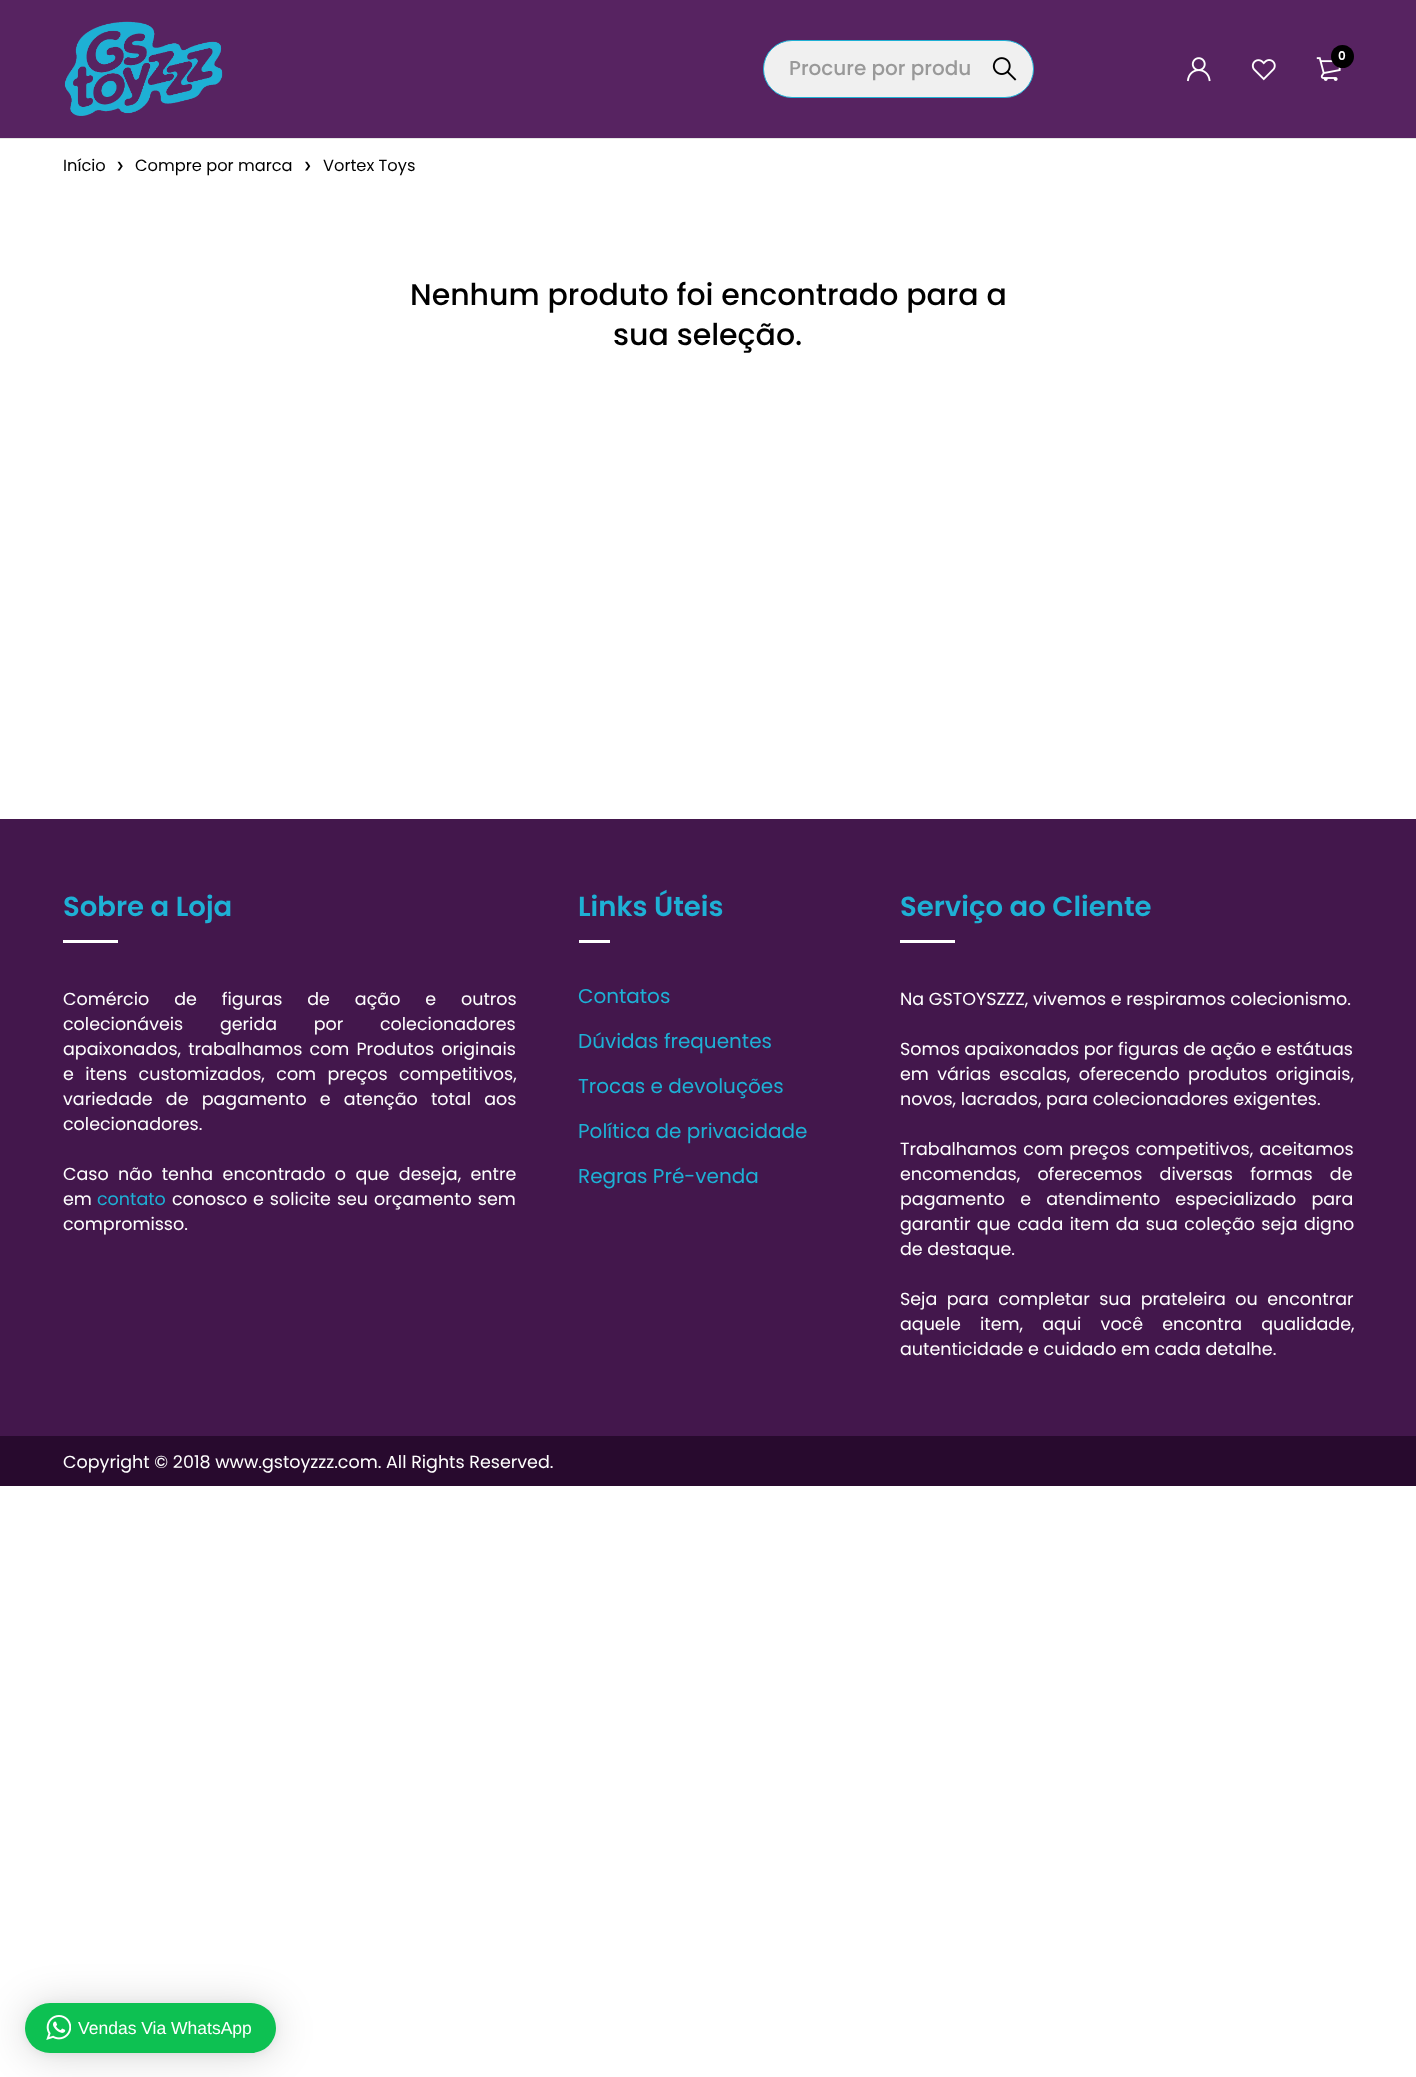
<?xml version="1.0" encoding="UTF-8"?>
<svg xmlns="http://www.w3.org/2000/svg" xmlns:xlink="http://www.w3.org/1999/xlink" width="1416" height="2077">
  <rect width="100%" height="100%" fill="#ffffff" />
  <rect width="1416" height="138" fill="#572361" />
  <image x="64" y="21" width="159" height="95" xlink:href="image1.png" />
  <image x="1316" y="57" width="25" height="24" xlink:href="image2.png" />
  <circle cx="1342.5" cy="56.5" r="11.5" fill="#000000" />
  <image x="1186" y="57" width="25" height="25" xlink:href="image3.png" />
  <image x="1251" y="59" width="25" height="22" xlink:href="image4.png" />
  <rect x="763.5" y="40.5" width="270" height="57" rx="28.5" fill="#f0f0f0" stroke="#1eb0d5" />
  <image x="992" y="57" width="25" height="24" xlink:href="image5.png" />
  <rect y="138" width="1416" height="1" fill="#e5e5e5" />
  <image x="117" y="161" width="6" height="10" xlink:href="image6.png" />
  <image x="305" y="161" width="6" height="10" xlink:href="image7.png" />
  <rect y="819" width="1416" height="617" fill="#43174c" />
  <rect x="63" y="940" width="55" height="3" fill="#ffffff" />
  <rect x="579" y="940" width="31" height="3" fill="#ffffff" />
  <rect x="900" y="940" width="55" height="3" fill="#ffffff" />
  <rect y="1436" width="1416" height="50" fill="#280a2e" />
  <rect x="25" y="2005" width="251" height="50" rx="25" fill="#000000" fill-opacity="0.16" filter="blur(20px)" />
  <rect x="25" y="2004" width="251" height="50" rx="25" fill="#000000" fill-opacity="0.06" filter="blur(4px)" />
  <rect x="25" y="2003" width="251" height="50" rx="25" fill="#0dc152" />
  <image x="46" y="2015" width="25" height="25" xlink:href="image8.png" />
  <text x="1338" y="60" style="font-family: Poppins; font-size: 12px; font-weight: 600; fill: #ffffff">0</text>
  <text x="789" y="75" style="font-family: Poppins; font-size: 20px; font-weight: 500; fill: #999999">Procure por produ</text>
  <text x="63" y="171" style="font-family: Poppins; font-size: 16.25px; fill: #000000">Início</text>
  <text x="135" y="171" style="font-family: Poppins; font-size: 16.25px; fill: #000000">Compre por marca</text>
  <text x="323" y="171" style="font-family: Poppins; font-size: 16.25px; fill: #000000">Vortex Toys</text>
  <text x="410" y="305" style="font-family: Poppins; font-size: 30px; font-weight: 500; fill: #000000">Nenhum produto foi encontrado para a</text>
  <text x="613" y="345" style="font-family: Poppins; font-size: 30px; font-weight: 500; fill: #000000">sua seleção.</text>
  <text x="63" y="916" style="font-family: Poppins; font-size: 27.5px; font-weight: 600; fill: #1eb0d5">Sobre a Loja</text>
  <text x="63" y="1005" word-spacing="20.25" style="font-family: Poppins; font-size: 17.5px; fill: #ffffff">Comércio de figuras de ação e outros</text>
  <text x="63" y="1030" word-spacing="32" style="font-family: Poppins; font-size: 17.5px; fill: #ffffff">colecionáveis gerida por colecionadores</text>
  <text x="63" y="1055" word-spacing="2.5" style="font-family: Poppins; font-size: 17.5px; fill: #ffffff">apaixonados, trabalhamos com Produtos originais</text>
  <text x="63" y="1080" word-spacing="6.75" style="font-family: Poppins; font-size: 17.5px; fill: #ffffff">e itens customizados, com preços competitivos,</text>
  <text x="63" y="1105" word-spacing="8.5" style="font-family: Poppins; font-size: 17.5px; fill: #ffffff">variedade de pagamento e atenção total aos</text>
  <text x="63" y="1130" style="font-family: Poppins; font-size: 17.5px; fill: #ffffff">colecionadores.</text>
  <text x="63" y="1180" word-spacing="4.75" style="font-family: Poppins; font-size: 17.5px; fill: #ffffff">Caso não tenha encontrado o que deseja, entre</text>
  <text x="63" y="1205" style="font-family: Poppins; font-size: 17.5px; fill: #ffffff">em</text>
  <text x="97" y="1205" style="font-family: Poppins; font-size: 17.5px; fill: #1eb0d5">contato</text>
  <text x="172" y="1205" word-spacing="1.25" style="font-family: Poppins; font-size: 17.5px; fill: #ffffff">conosco e solicite seu orçamento sem</text>
  <text x="63" y="1230" style="font-family: Poppins; font-size: 17.5px; fill: #ffffff">compromisso.</text>
  <text x="578" y="916" style="font-family: Poppins; font-size: 27.5px; font-weight: 600; fill: #1eb0d5">Links Úteis</text>
  <text x="578" y="1003" style="font-family: Poppins; font-size: 20px; fill: #1eb0d5">Contatos</text>
  <text x="578" y="1048" style="font-family: Poppins; font-size: 20px; fill: #1eb0d5">Dúvidas frequentes</text>
  <text x="578" y="1093" style="font-family: Poppins; font-size: 20px; fill: #1eb0d5">Trocas e devoluções</text>
  <text x="578" y="1138" style="font-family: Poppins; font-size: 20px; fill: #1eb0d5">Política de privacidade</text>
  <text x="578" y="1183" style="font-family: Poppins; font-size: 20px; fill: #1eb0d5">Regras Pré-venda</text>
  <text x="900" y="916" style="font-family: Poppins; font-size: 27.5px; font-weight: 600; fill: #1eb0d5">Serviço ao Cliente</text>
  <text x="900" y="1005" style="font-family: Poppins; font-size: 17.5px; fill: #ffffff">Na GSTOYSZZZ, vivemos e respiramos colecionismo.</text>
  <text x="900" y="1055" style="font-family: Poppins; font-size: 17.5px; fill: #ffffff">Somos apaixonados por figuras de ação e estátuas</text>
  <text x="900" y="1080" word-spacing="3.75" style="font-family: Poppins; font-size: 17.5px; fill: #ffffff">em várias escalas, oferecendo produtos originais,</text>
  <text x="900" y="1105" style="font-family: Poppins; font-size: 17.5px; fill: #ffffff">novos, lacrados, para colecionadores exigentes.</text>
  <text x="900" y="1155" word-spacing="1.5" style="font-family: Poppins; font-size: 17.5px; fill: #ffffff">Trabalhamos com preços competitivos, aceitamos</text>
  <text x="900" y="1180" word-spacing="12.5" style="font-family: Poppins; font-size: 17.5px; fill: #ffffff">encomendas, oferecemos diversas formas de</text>
  <text x="900" y="1205" word-spacing="10.5" style="font-family: Poppins; font-size: 17.5px; fill: #ffffff">pagamento e atendimento especializado para</text>
  <text x="900" y="1230" word-spacing="1.75" style="font-family: Poppins; font-size: 17.5px; fill: #ffffff">garantir que cada item da sua coleção seja digno</text>
  <text x="900" y="1255" style="font-family: Poppins; font-size: 17.5px; fill: #ffffff">de destaque.</text>
  <text x="900" y="1305" word-spacing="4.75" style="font-family: Poppins; font-size: 17.5px; fill: #ffffff">Seja para completar sua prateleira ou encontrar</text>
  <text x="900" y="1330" word-spacing="14.5" style="font-family: Poppins; font-size: 17.5px; fill: #ffffff">aquele item, aqui você encontra qualidade,</text>
  <text x="900" y="1355" style="font-family: Poppins; font-size: 17.5px; fill: #ffffff">autenticidade e cuidado em cada detalhe.</text>
  <text x="63" y="1468" style="font-family: Poppins; font-size: 17.5px; fill: #ffffff">Copyright © 2018 www.gstoyzzz.com. All Rights Reserved.</text>
  <text x="78" y="2034" style="font-family: Liberation Sans; font-size: 17.5px; fill: #ffffff">Vendas Via WhatsApp</text>
</svg>
